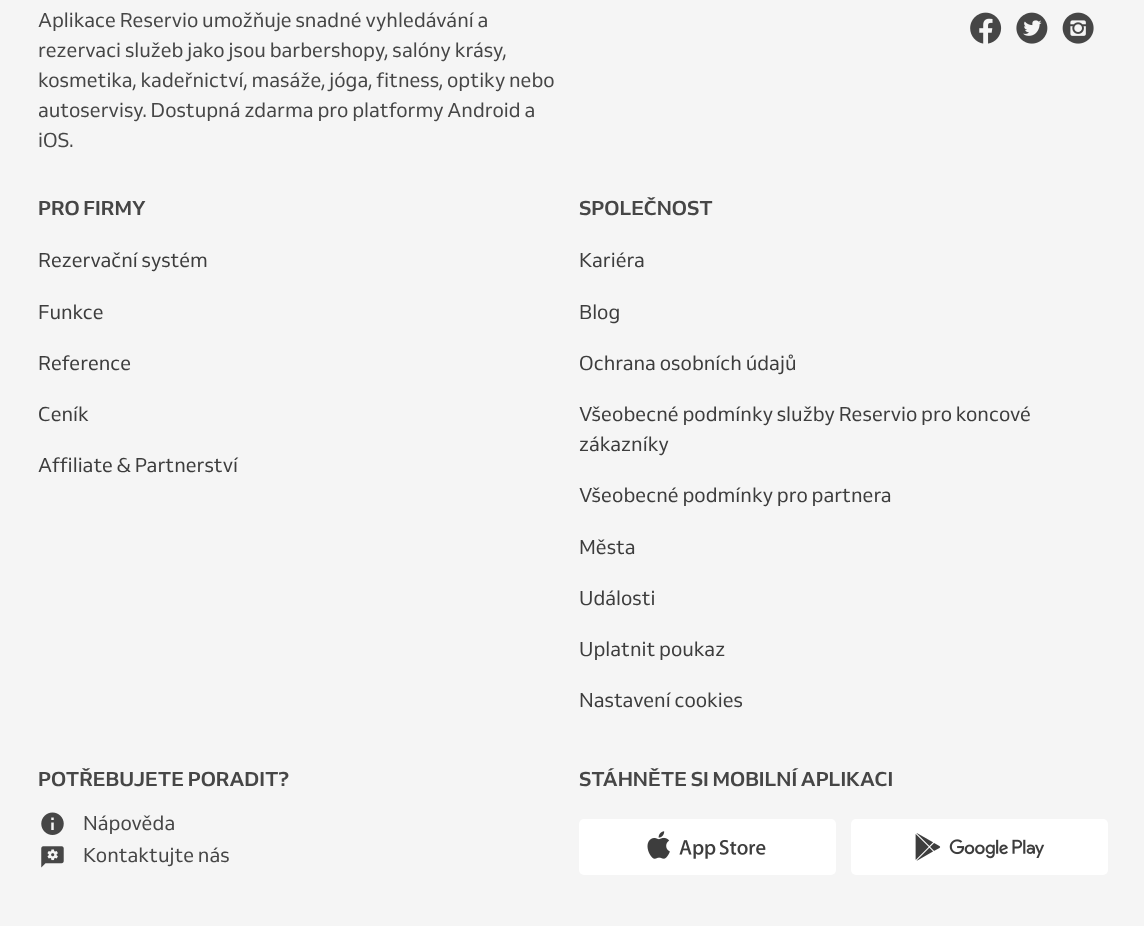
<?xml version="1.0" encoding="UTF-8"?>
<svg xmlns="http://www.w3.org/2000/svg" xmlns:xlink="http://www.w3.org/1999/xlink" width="1144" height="926">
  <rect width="100%" height="100%" fill="#f5f5f5" />
  <image x="970" y="12" width="32" height="32" xlink:href="image1.png" />
  <image x="1016" y="12" width="32" height="32" xlink:href="image2.png" />
  <image x="1062" y="12" width="32" height="32" xlink:href="image3.png" />
  <image x="41" y="812" width="23" height="23" xlink:href="image4.png" />
  <image x="41" y="846" width="23" height="22" xlink:href="image5.png" />
  <rect x="579" y="819" width="257" height="56" rx="5" fill="#ffffff" />
  <image x="647" y="831" width="119" height="28" xlink:href="image6.png" />
  <rect x="851" y="819" width="257" height="56" rx="5" fill="#ffffff" />
  <image x="915" y="833" width="130" height="28" xlink:href="image7.png" />
  <text x="38" y="27" style="font-family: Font; font-size: 20px; fill: #464646">Aplikace Reservio umožňuje snadné vyhledávání a</text>
  <text x="38" y="57" style="font-family: Font; font-size: 20px; fill: #464646">rezervaci služeb jako jsou barbershopy, salóny krásy,</text>
  <text x="38" y="87" style="font-family: Font; font-size: 20px; fill: #464646">kosmetika, kadeřnictví, masáže, jóga, fitness, optiky nebo</text>
  <text x="38" y="117" style="font-family: Font; font-size: 20px; fill: #464646">autoservisy. Dostupná zdarma pro platformy Android a</text>
  <text x="38" y="147" style="font-family: Font; font-size: 20px; fill: #464646">iOS.</text>
  <text x="38" y="215" style="font-family: Font; font-size: 20px; font-weight: bold; fill: #464646">PRO FIRMY</text>
  <text x="38" y="267" style="font-family: Font; font-size: 20px; fill: #3d3d3d">Rezervační systém</text>
  <text x="38" y="319" style="font-family: Font; font-size: 20px; fill: #3d3d3d">Funkce</text>
  <text x="38" y="370" style="font-family: Font; font-size: 20px; fill: #3d3d3d">Reference</text>
  <text x="38" y="421" style="font-family: Font; font-size: 20px; fill: #3d3d3d">Ceník</text>
  <text x="38" y="472" style="font-family: Font; font-size: 20px; fill: #3d3d3d">Affiliate &amp; Partnerství</text>
  <text x="579" y="215" style="font-family: Font; font-size: 20px; font-weight: bold; fill: #464646">SPOLEČNOST</text>
  <text x="579" y="267" style="font-family: Font; font-size: 20px; fill: #3d3d3d">Kariéra</text>
  <text x="579" y="319" style="font-family: Font; font-size: 20px; fill: #3d3d3d">Blog</text>
  <text x="579" y="370" style="font-family: Font; font-size: 20px; fill: #3d3d3d">Ochrana osobních údajů</text>
  <text x="579" y="421" style="font-family: Font; font-size: 20px; fill: #3d3d3d">Všeobecné podmínky služby Reservio pro koncové</text>
  <text x="579" y="451" style="font-family: Font; font-size: 20px; fill: #3d3d3d">zákazníky</text>
  <text x="579" y="502" style="font-family: Font; font-size: 20px; fill: #3d3d3d">Všeobecné podmínky pro partnera</text>
  <text x="579" y="554" style="font-family: Font; font-size: 20px; fill: #3d3d3d">Města</text>
  <text x="579" y="605" style="font-family: Font; font-size: 20px; fill: #3d3d3d">Události</text>
  <text x="579" y="656" style="font-family: Font; font-size: 20px; fill: #3d3d3d">Uplatnit poukaz</text>
  <text x="579" y="707" style="font-family: Font; font-size: 20px; fill: #3d3d3d">Nastavení cookies</text>
  <text x="38" y="786" style="font-family: Font; font-size: 20px; font-weight: bold; fill: #464646">POTŘEBUJETE PORADIT?</text>
  <text x="83" y="830" style="font-family: Font; font-size: 20px; fill: #464646">Nápověda</text>
  <text x="83" y="862" style="font-family: Font; font-size: 20px; fill: #464646">Kontaktujte nás</text>
  <text x="579" y="786" style="font-family: Font; font-size: 20px; font-weight: bold; fill: #464646">STÁHNĚTE SI MOBILNÍ APLIKACI</text>
</svg>
